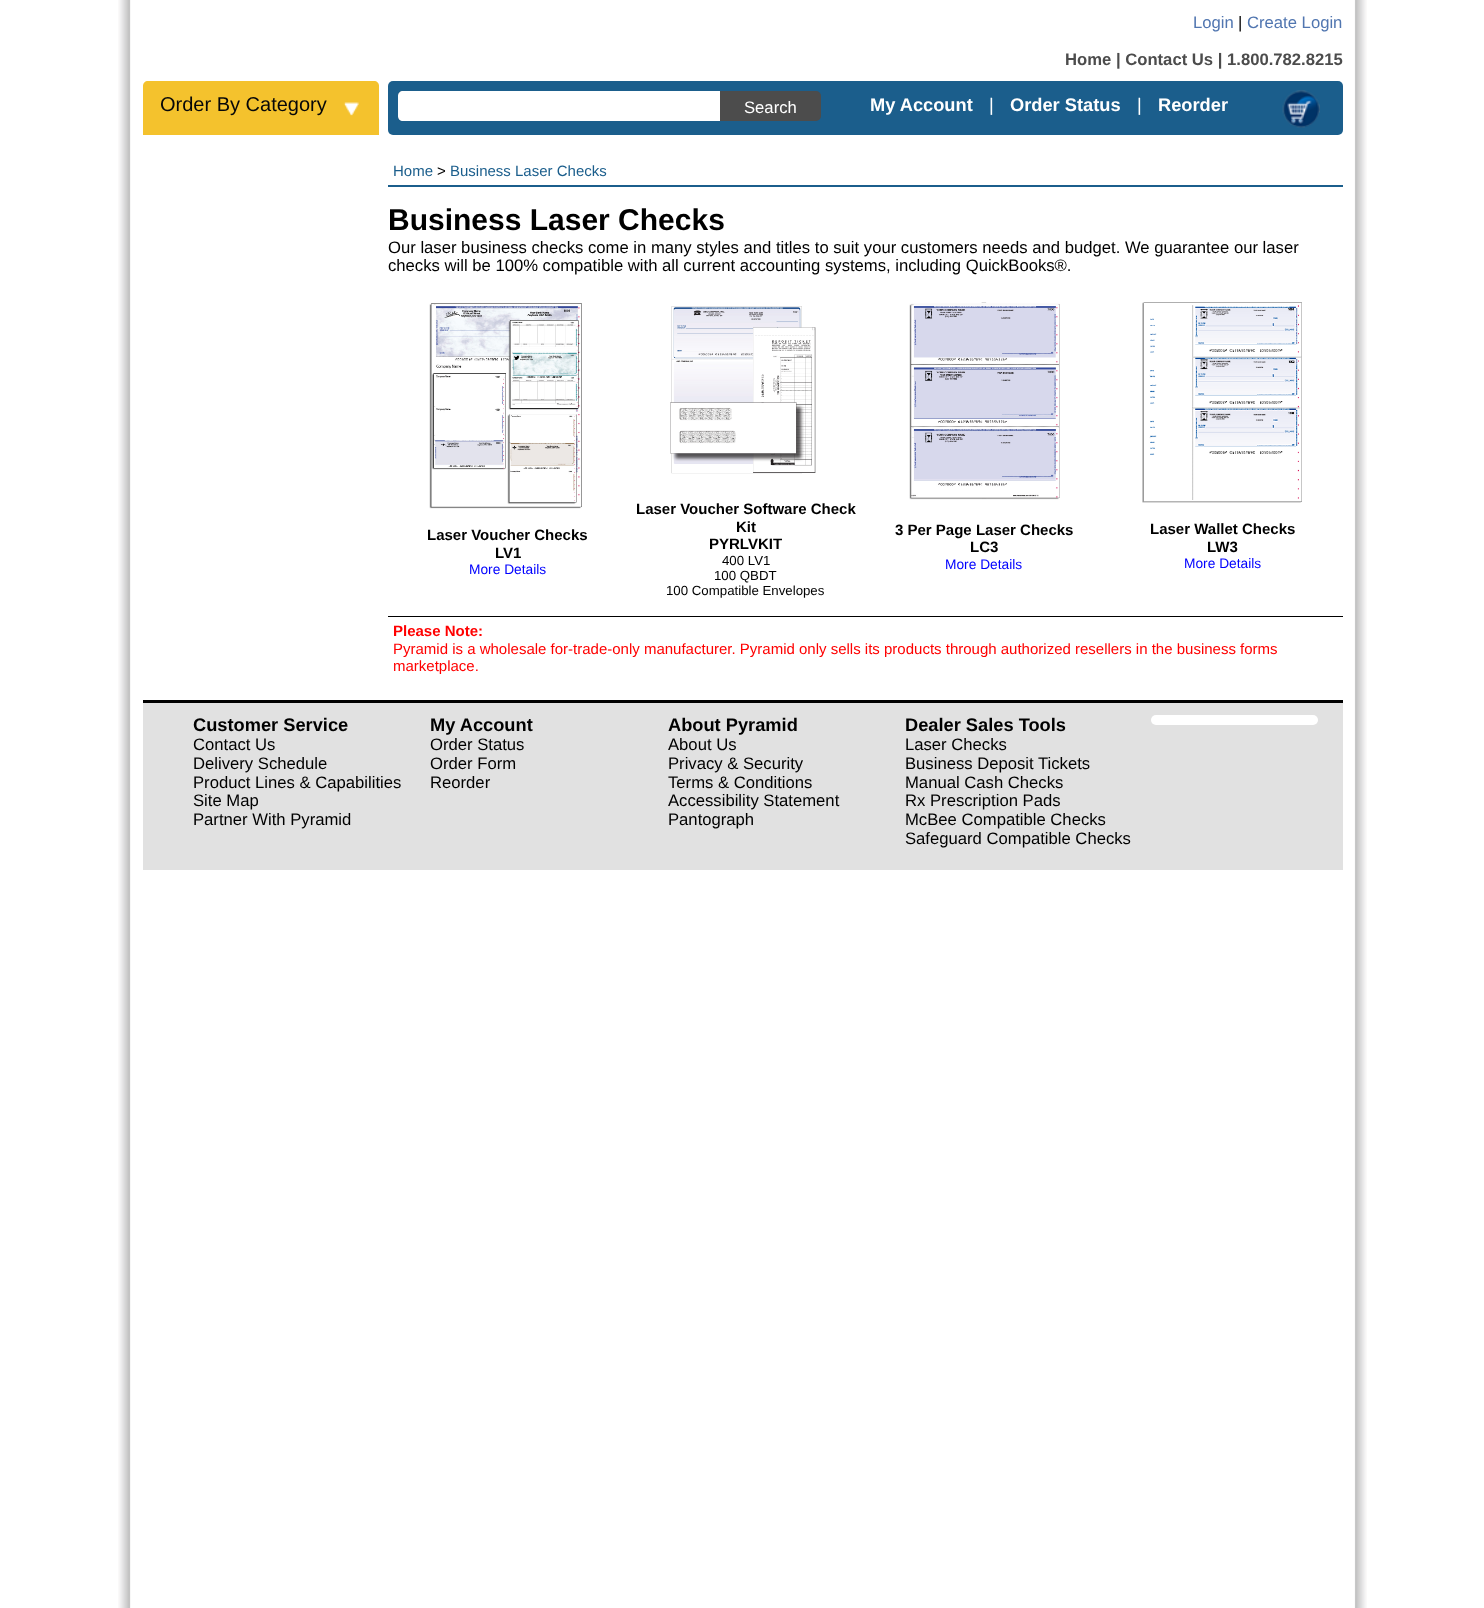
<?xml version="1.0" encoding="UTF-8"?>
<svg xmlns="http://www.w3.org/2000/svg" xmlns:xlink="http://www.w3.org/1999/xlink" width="1484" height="1608">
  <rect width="100%" height="100%" fill="#ffffff" />
  <image x="118" y="0" width="1249" height="1608" xlink:href="image1.png" />
  <path d="M 148 81 h 226 c 3 0 5 2 5 5 v 49 h -236 v -49 c 0 -3 2 -5 5 -5 z" fill="#f4c22d" />
  <image x="343" y="102" width="16" height="14" xlink:href="image2.png" />
  <rect x="388" y="81" width="955" height="54" rx="5" fill="#1b5e8c" />
  <rect x="398" y="91" width="423" height="30" rx="5" fill="#4c4c4c" />
  <path d="M 403 91 h 317 v 30 h -317 c -3 0 -5 -2 -5 -5 v -20 c 0 -3 2 -5 5 -5 z" fill="#ffffff" />
  <image x="1282" y="90" width="38" height="38" xlink:href="image3.png" />
  <rect x="388" y="185" width="955" height="2" fill="#1b5e8c" />
  <image x="429" y="303" width="153" height="206" xlink:href="image4.png" />
  <image x="670" y="306" width="146" height="168" xlink:href="image5.png" />
  <image x="909" y="302" width="151" height="198" xlink:href="image6.png" />
  <image x="1142" y="302" width="160" height="201" xlink:href="image7.png" />
  <rect x="388" y="616" width="955" height="1" fill="#000000" />
  <rect x="143" y="703" width="1200" height="167" fill="#e1e1e1" />
  <rect x="143" y="700" width="1200" height="3" fill="#000000" />
  <rect x="1151" y="715" width="167" height="10" rx="5" fill="#ffffff" />
  <text x="1193" y="28" style="font-family: Liberation Sans; font-size: 16.67px; fill: #5176b0">Login</text>
  <text x="1238" y="28" style="font-family: Liberation Sans; font-size: 16.67px; fill: #000000">|</text>
  <text x="1247" y="28" style="font-family: Liberation Sans; font-size: 16.67px; fill: #5176b0">Create Login</text>
  <text x="1065" y="65" style="font-family: Liberation Sans; font-size: 16.67px; font-weight: bold; fill: #4c4c4c">Home | Contact Us | 1.800.782.8215</text>
  <text x="160" y="111" style="font-family: Liberation Sans; font-size: 20px; fill: #060709">Order By Category</text>
  <text x="744" y="113" style="font-family: Liberation Sans; font-size: 16.67px; fill: #ffffff">Search</text>
  <text x="870" y="111" style="font-family: Liberation Sans; font-size: 18.25px; font-weight: bold; fill: #ffffff">My Account</text>
  <text x="989" y="111" style="font-family: Liberation Sans; font-size: 18.25px; fill: #ffffff">|</text>
  <text x="1010" y="111" style="font-family: Liberation Sans; font-size: 18.25px; font-weight: bold; fill: #ffffff">Order Status</text>
  <text x="1137" y="111" style="font-family: Liberation Sans; font-size: 18.25px; fill: #ffffff">|</text>
  <text x="1158" y="111" style="font-family: Liberation Sans; font-size: 18.25px; font-weight: bold; fill: #ffffff">Reorder</text>
  <text x="393" y="176" style="font-family: Liberation Sans; font-size: 15px; fill: #1b5e8c">Home</text>
  <text x="437" y="176" style="font-family: Liberation Sans; font-size: 15px; fill: #000000">&gt;</text>
  <text x="450" y="176" style="font-family: Liberation Sans; font-size: 15px; fill: #1b5e8c">Business Laser Checks</text>
  <text x="388" y="230" style="font-family: Liberation Sans; font-size: 30px; font-weight: bold; fill: #000000">Business Laser Checks</text>
  <text x="388" y="253" style="font-family: Liberation Sans; font-size: 16.67px; fill: #000000">Our laser business checks come in many styles and titles to suit your customers needs and budget. We guarantee our laser</text>
  <text x="388" y="271" style="font-family: Liberation Sans; font-size: 16.67px; fill: #000000">checks will be 100% compatible with all current accounting systems, including QuickBooks®.</text>
  <text x="427" y="540" style="font-family: Liberation Sans; font-size: 15px; font-weight: bold; fill: #000000">Laser Voucher Checks</text>
  <text x="495" y="558" style="font-family: Liberation Sans; font-size: 15px; font-weight: bold; fill: #000000">LV1</text>
  <text x="469" y="574" style="font-family: Liberation Sans; font-size: 13.75px; fill: #0000ff">More Details</text>
  <text x="636" y="514" style="font-family: Liberation Sans; font-size: 15px; font-weight: bold; fill: #000000">Laser Voucher Software Check</text>
  <text x="736" y="532" style="font-family: Liberation Sans; font-size: 15px; font-weight: bold; fill: #000000">Kit</text>
  <text x="709" y="549" style="font-family: Liberation Sans; font-size: 15px; font-weight: bold; fill: #000000">PYRLVKIT</text>
  <text x="722" y="565" style="font-family: Liberation Sans; font-size: 13.25px; fill: #000000">400 LV1</text>
  <text x="714" y="580" style="font-family: Liberation Sans; font-size: 13.25px; fill: #000000">100 QBDT</text>
  <text x="666" y="595" style="font-family: Liberation Sans; font-size: 13.25px; fill: #000000">100 Compatible Envelopes</text>
  <text x="895" y="535" style="font-family: Liberation Sans; font-size: 15px; font-weight: bold; fill: #000000">3 Per Page Laser Checks</text>
  <text x="970" y="552" style="font-family: Liberation Sans; font-size: 15px; font-weight: bold; fill: #000000">LC3</text>
  <text x="945" y="569" style="font-family: Liberation Sans; font-size: 13.75px; fill: #0000ff">More Details</text>
  <text x="1150" y="534" style="font-family: Liberation Sans; font-size: 15px; font-weight: bold; fill: #000000">Laser Wallet Checks</text>
  <text x="1207" y="552" style="font-family: Liberation Sans; font-size: 15px; font-weight: bold; fill: #000000">LW3</text>
  <text x="1184" y="568" style="font-family: Liberation Sans; font-size: 13.75px; fill: #0000ff">More Details</text>
  <text x="393" y="636" style="font-family: Liberation Sans; font-size: 15px; font-weight: bold; fill: #ff0000">Please Note:</text>
  <text x="393" y="654" style="font-family: Liberation Sans; font-size: 15px; fill: #ff0000">Pyramid is a wholesale for-trade-only manufacturer. Pyramid only sells its products through authorized resellers in the business forms</text>
  <text x="393" y="671" style="font-family: Liberation Sans; font-size: 15px; fill: #ff0000">marketplace.</text>
  <text x="193" y="731" style="font-family: Liberation Sans; font-size: 18.25px; font-weight: bold; fill: #000000">Customer Service</text>
  <text x="193" y="750" style="font-family: Liberation Sans; font-size: 16.67px; fill: #000000">Contact Us</text>
  <text x="193" y="769" style="font-family: Liberation Sans; font-size: 16.67px; fill: #000000">Delivery Schedule</text>
  <text x="193" y="788" style="font-family: Liberation Sans; font-size: 16.67px; fill: #000000">Product Lines &amp; Capabilities</text>
  <text x="193" y="806" style="font-family: Liberation Sans; font-size: 16.67px; fill: #000000">Site Map</text>
  <text x="193" y="825" style="font-family: Liberation Sans; font-size: 16.67px; fill: #000000">Partner With Pyramid</text>
  <text x="430" y="731" style="font-family: Liberation Sans; font-size: 18.25px; font-weight: bold; fill: #000000">My Account</text>
  <text x="430" y="750" style="font-family: Liberation Sans; font-size: 16.67px; fill: #000000">Order Status</text>
  <text x="430" y="769" style="font-family: Liberation Sans; font-size: 16.67px; fill: #000000">Order Form</text>
  <text x="430" y="788" style="font-family: Liberation Sans; font-size: 16.67px; fill: #000000">Reorder</text>
  <text x="668" y="731" style="font-family: Liberation Sans; font-size: 18.25px; font-weight: bold; fill: #000000">About Pyramid</text>
  <text x="668" y="750" style="font-family: Liberation Sans; font-size: 16.67px; fill: #000000">About Us</text>
  <text x="668" y="769" style="font-family: Liberation Sans; font-size: 16.67px; fill: #000000">Privacy &amp; Security</text>
  <text x="668" y="788" style="font-family: Liberation Sans; font-size: 16.67px; fill: #000000">Terms &amp; Conditions</text>
  <text x="668" y="806" style="font-family: Liberation Sans; font-size: 16.67px; fill: #000000">Accessibility Statement</text>
  <text x="668" y="825" style="font-family: Liberation Sans; font-size: 16.67px; fill: #000000">Pantograph</text>
  <text x="905" y="731" style="font-family: Liberation Sans; font-size: 18.25px; font-weight: bold; fill: #000000">Dealer Sales Tools</text>
  <text x="905" y="750" style="font-family: Liberation Sans; font-size: 16.67px; fill: #000000">Laser Checks</text>
  <text x="905" y="769" style="font-family: Liberation Sans; font-size: 16.67px; fill: #000000">Business Deposit Tickets</text>
  <text x="905" y="788" style="font-family: Liberation Sans; font-size: 16.67px; fill: #000000">Manual Cash Checks</text>
  <text x="905" y="806" style="font-family: Liberation Sans; font-size: 16.67px; fill: #000000">Rx Prescription Pads</text>
  <text x="905" y="825" style="font-family: Liberation Sans; font-size: 16.67px; fill: #000000">McBee Compatible Checks</text>
  <text x="905" y="844" style="font-family: Liberation Sans; font-size: 16.67px; fill: #000000">Safeguard Compatible Checks</text>
</svg>
